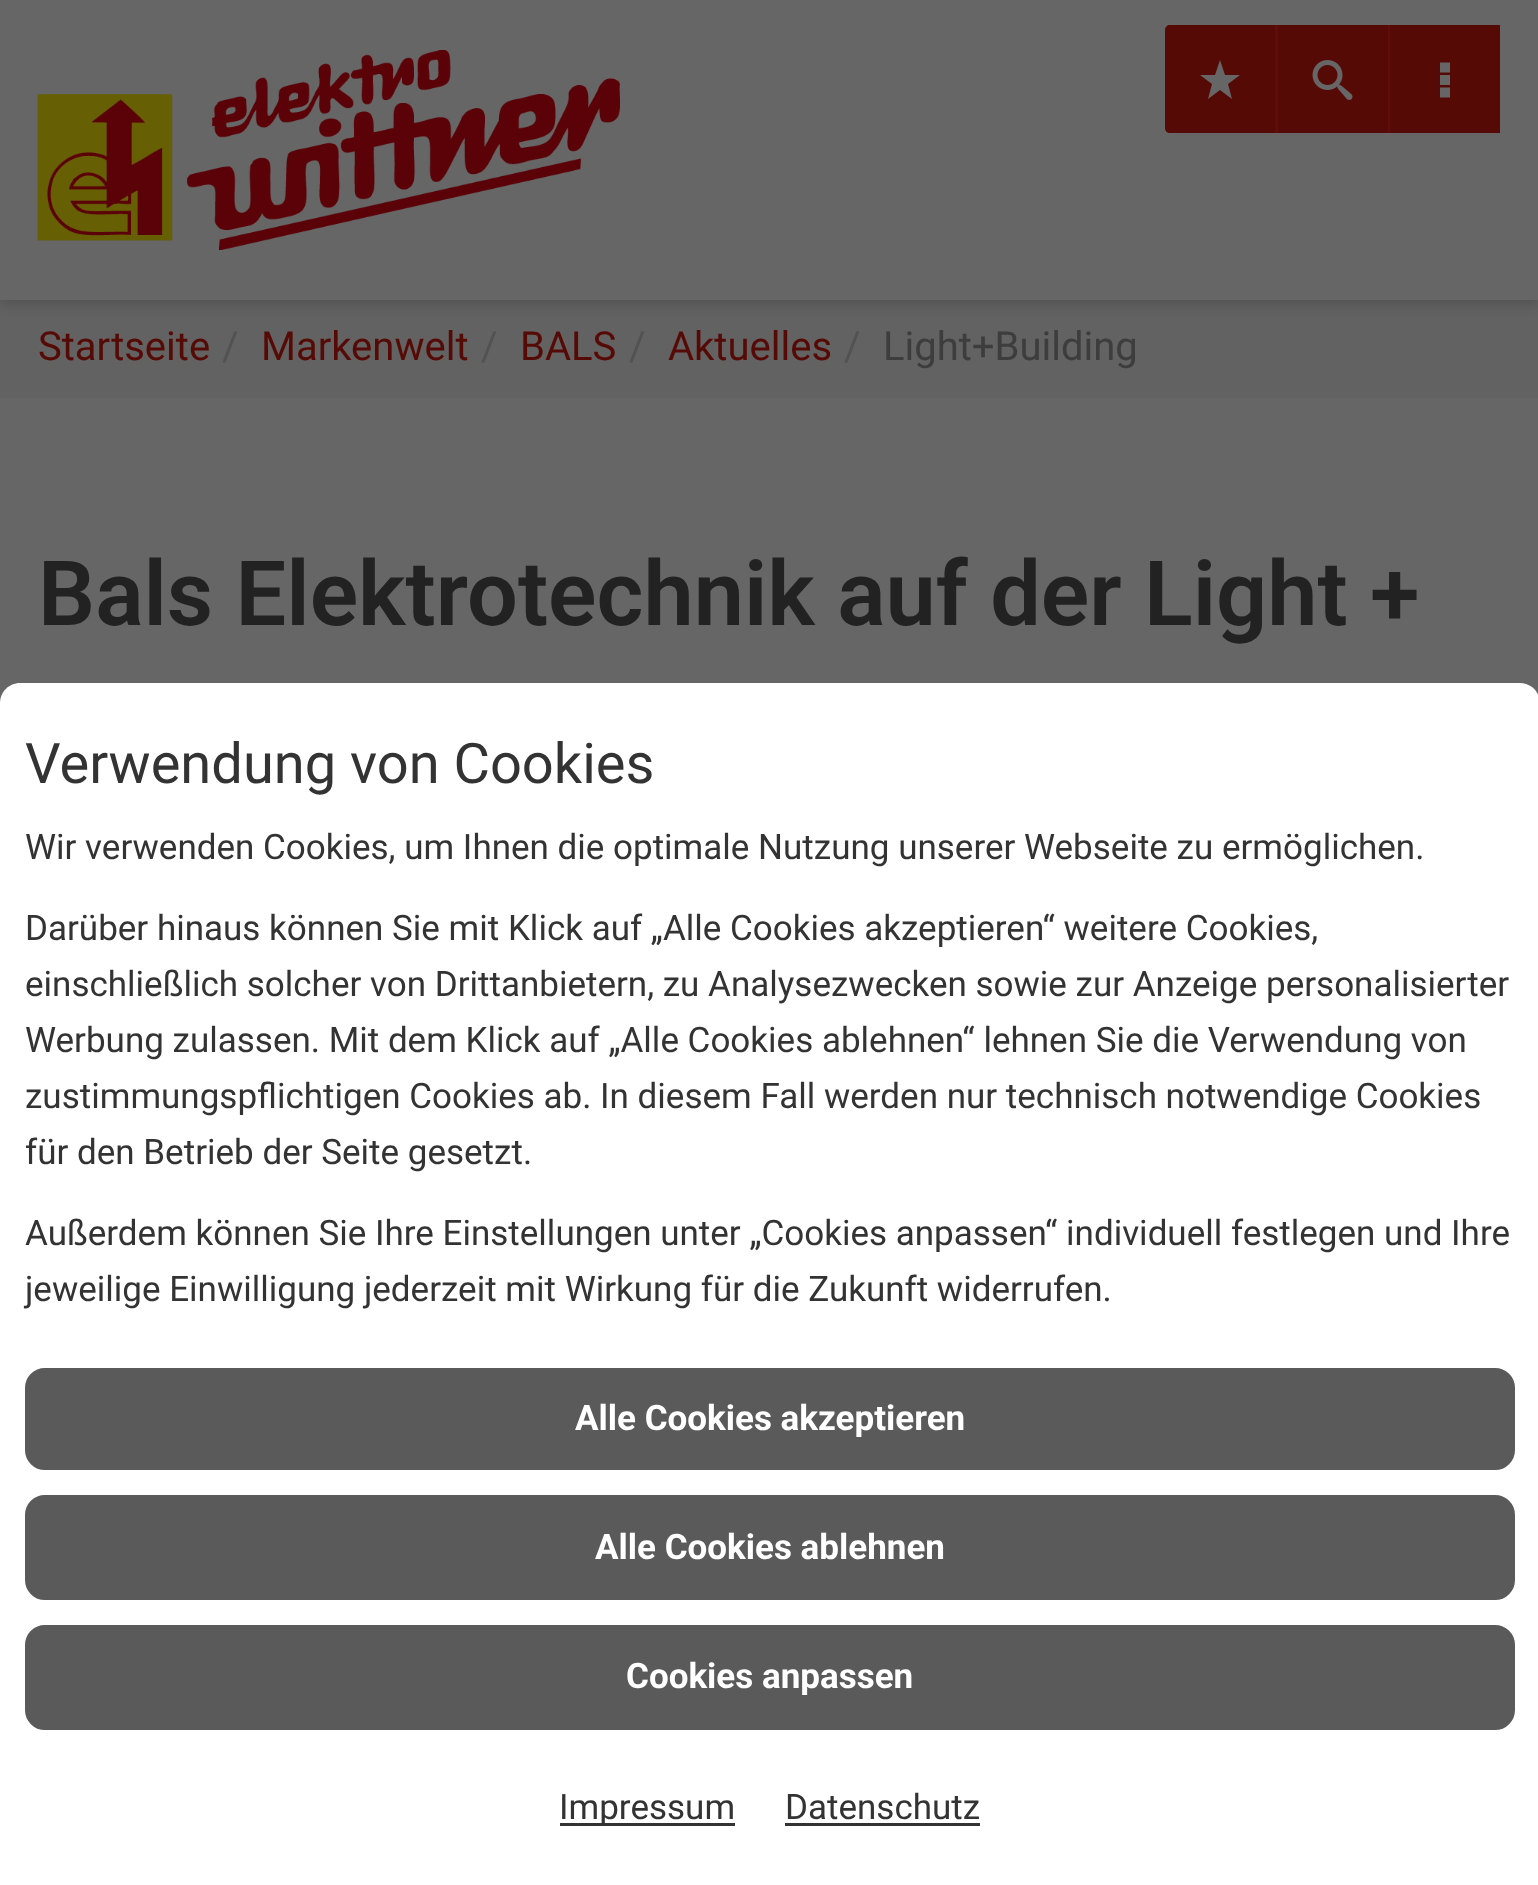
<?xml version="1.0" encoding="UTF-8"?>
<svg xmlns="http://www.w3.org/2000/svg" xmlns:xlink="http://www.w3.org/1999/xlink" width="1538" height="1885">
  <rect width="100%" height="100%" fill="#626262" />
  <rect y="5" width="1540" height="300" fill="#000000" fill-opacity="0.15" filter="blur(6px)" />
  <rect width="1538" height="300" fill="#666666" />
  <image x="37" y="50" width="583" height="200" xlink:href="image1.png" />
  <rect x="1275" y="25" width="3" height="108" fill="#600d08" />
  <path d="M 1170 25 h 105 v 108 h -105 c -3 0 -5 -2 -5 -5 v -98 c 0 -3 2 -5 5 -5 z" fill="#560a06" />
  <path d="M 1240 75 h -15 l -5 -15 l -5 15 h -15 l 12 9 l -4 15 l 12 -9 l 12 9 l -4 -15 z" fill="#666666" />
  <rect x="1388" y="25" width="2" height="108" fill="#600d08" />
  <rect x="1278" y="25" width="110" height="108" fill="#560a06" />
  <image x="1312" y="60" width="41" height="40" xlink:href="image2.png" />
  <rect x="1390" y="25" width="110" height="108" fill="#560a06" />
  <path d="M 1440 62.5 h 10 v 10 h -10 z m 0 12.5 h 10 v 10 h -10 z m 0 12.5 h 10 v 10 h -10 z" fill="#666666" />
  <rect y="398" width="1538" height="305" fill="#666666" />
  <path d="M 20 683 h 1500 c 11 0 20 9 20 20 v 1182 h -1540 v -1182 c 0 -11 9 -20 20 -20 z" fill="#ffffff" />
  <rect x="26.5" y="1369.5" width="1487" height="99" rx="18.5" fill="#5a5a5a" stroke="#5a5a5a" stroke-width="3" />
  <rect x="26.5" y="1496.5" width="1487" height="102" rx="18.5" fill="#5a5a5a" stroke="#5a5a5a" stroke-width="3" />
  <rect x="26.5" y="1626.5" width="1487" height="102" rx="18.5" fill="#5a5a5a" stroke="#5a5a5a" stroke-width="3" />
  <rect x="560" y="1823" width="175" height="3" fill="#333333" />
  <rect x="785" y="1823" width="195" height="3" fill="#333333" />
  <text x="38" y="360" style="font-family: Roboto; font-size: 40px; fill: #560a06">Startseite</text>
  <text x="222" y="360" style="font-family: Roboto; font-size: 40px; fill: #525252">/</text>
  <text x="261" y="360" style="font-family: Roboto; font-size: 40px; fill: #560a06">Markenwelt</text>
  <text x="481" y="360" style="font-family: Roboto; font-size: 40px; fill: #525252">/</text>
  <text x="520" y="360" style="font-family: Roboto; font-size: 40px; fill: #560a06">BALS</text>
  <text x="629" y="360" style="font-family: Roboto; font-size: 40px; fill: #525252">/</text>
  <text x="668" y="360" style="font-family: Roboto; font-size: 40px; fill: #560a06">Aktuelles</text>
  <text x="844" y="360" style="font-family: Roboto; font-size: 40px; fill: #525252">/</text>
  <text x="883" y="360" style="font-family: Roboto; font-size: 40px; fill: #3d3d3d">Light+Building</text>
  <text x="38" y="625" style="font-family: Roboto; font-size: 90px; font-weight: 600; fill: #222222">Bals Elektrotechnik auf der Light +</text>
  <text x="25" y="783" style="font-family: Roboto; font-size: 56px; fill: #333333">Verwendung von Cookies</text>
  <text x="25" y="859" style="font-family: Roboto; font-size: 35px; fill: #333333">Wir verwenden Cookies, um Ihnen die optimale Nutzung unserer Webseite zu ermöglichen.</text>
  <text x="25" y="940" style="font-family: Roboto; font-size: 35px; fill: #333333">Darüber hinaus können Sie mit Klick auf „Alle Cookies akzeptieren“ weitere Cookies,</text>
  <text x="25" y="996" style="font-family: Roboto; font-size: 35px; fill: #333333">einschließlich solcher von Drittanbietern, zu Analysezwecken sowie zur Anzeige personalisierter</text>
  <text x="25" y="1052" style="font-family: Roboto; font-size: 35px; fill: #333333">Werbung zulassen. Mit dem Klick auf „Alle Cookies ablehnen“ lehnen Sie die Verwendung von</text>
  <text x="25" y="1108" style="font-family: Roboto; font-size: 35px; fill: #333333">zustimmungspflichtigen Cookies ab. In diesem Fall werden nur technisch notwendige Cookies</text>
  <text x="25" y="1164" style="font-family: Roboto; font-size: 35px; fill: #333333">für den Betrieb der Seite gesetzt.</text>
  <text x="25" y="1245" style="font-family: Roboto; font-size: 35px; fill: #333333">Außerdem können Sie Ihre Einstellungen unter „Cookies anpassen“ individuell festlegen und Ihre</text>
  <text x="25" y="1301" style="font-family: Roboto; font-size: 35px; fill: #333333">jeweilige Einwilligung jederzeit mit Wirkung für die Zukunft widerrufen.</text>
  <text x="575" y="1430" style="font-family: Roboto; font-size: 35px; font-weight: bold; fill: #ffffff">Alle Cookies akzeptieren</text>
  <text x="595" y="1559" style="font-family: Roboto; font-size: 35px; font-weight: bold; fill: #ffffff">Alle Cookies ablehnen</text>
  <text x="626" y="1688" style="font-family: Roboto; font-size: 35px; font-weight: bold; fill: #ffffff">Cookies anpassen</text>
  <text x="559" y="1819" style="font-family: Roboto; font-size: 35px; fill: #333333">Impressum</text>
  <text x="785" y="1819" style="font-family: Roboto; font-size: 35px; fill: #333333">Datenschutz</text>
</svg>
